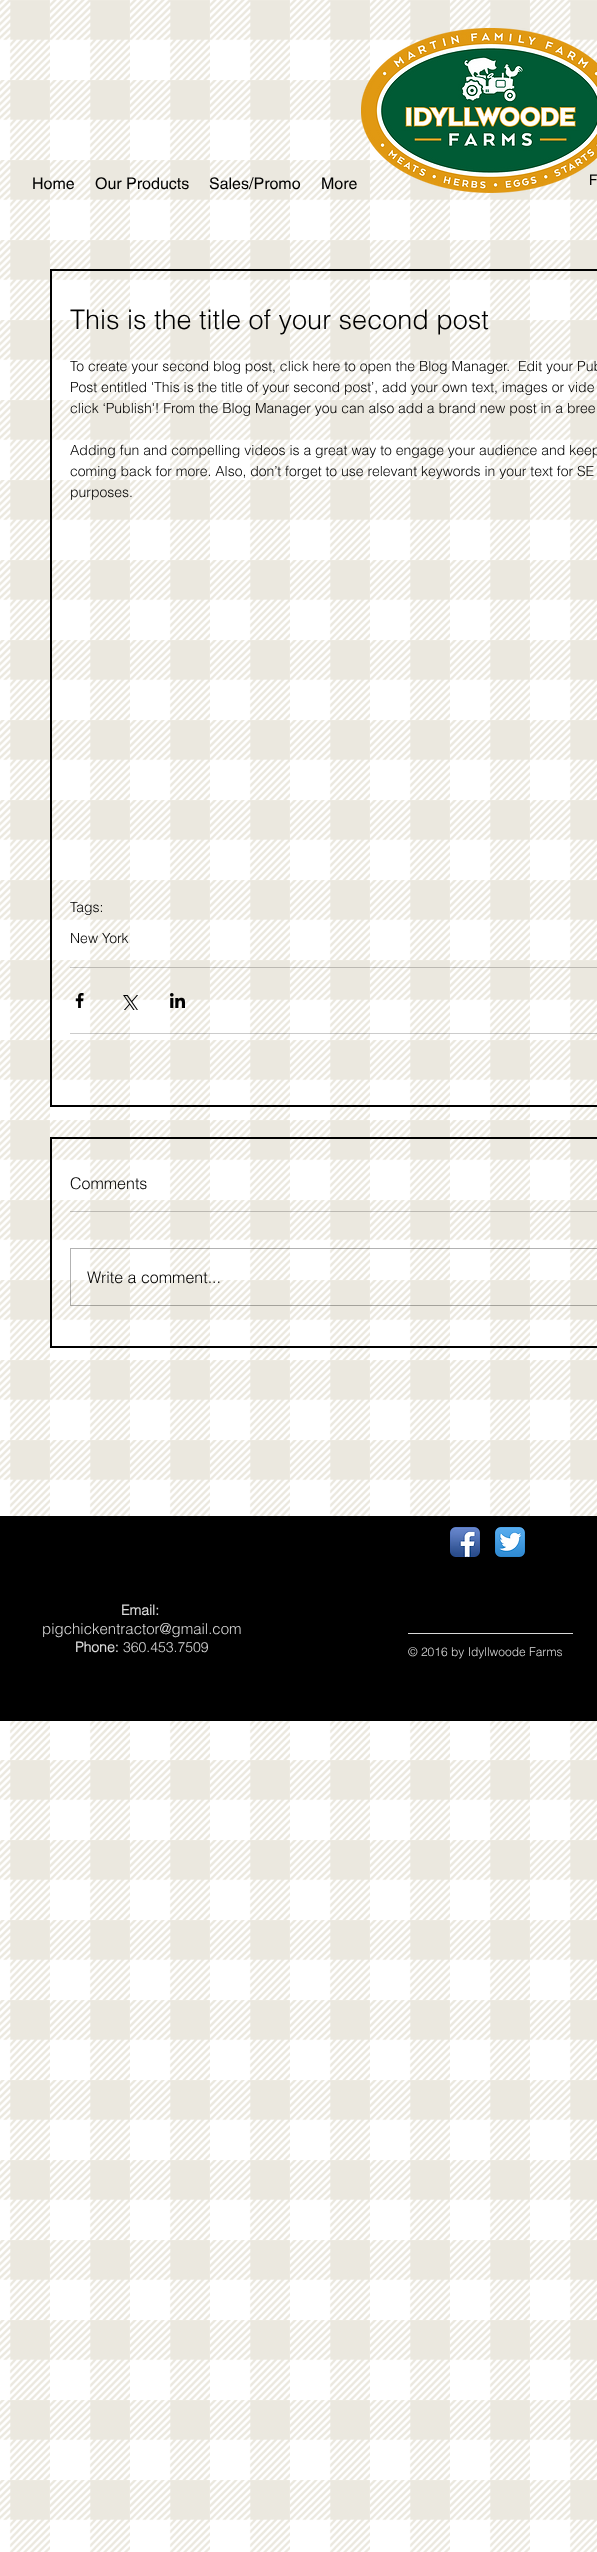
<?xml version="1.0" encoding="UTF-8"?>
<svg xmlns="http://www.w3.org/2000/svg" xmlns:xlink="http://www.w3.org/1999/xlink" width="597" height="2552">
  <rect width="100%" height="100%" fill="#ffffff" />
  <image x="0" y="0" width="597" height="2552" xlink:href="image1.png" />
  <rect x="51" y="270" width="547" height="836" fill="none" stroke="#000000" stroke-width="2" />
  <rect x="70" y="967" width="527" height="1" fill="#000000" fill-opacity="0.2" />
  <image x="75" y="993" width="9" height="15" xlink:href="image3.png" />
  <image x="123" y="995" width="15" height="15" xlink:href="image4.png" />
  <image x="170" y="993" width="15" height="15" xlink:href="image5.png" />
  <rect x="70" y="1033" width="527" height="1" fill="#000000" fill-opacity="0.2" />
  <rect x="51" y="1138" width="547" height="209" fill="none" stroke="#000000" stroke-width="2" />
  <rect x="70" y="1211" width="527" height="1" fill="#000000" fill-opacity="0.2" />
  <rect x="70.5" y="1248.5" width="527" height="57" fill="none" stroke="#000000" stroke-opacity="0.3" />
  <rect y="1516" width="597" height="205" fill="#000000" />
  <image x="450" y="1527" width="30" height="30" xlink:href="image6.png" />
  <image x="495" y="1527" width="30" height="30" xlink:href="image7.png" />
  <rect x="408" y="1633" width="165" height="1" fill="#d9d9d9" />
  <text x="32" y="189" style="font-family: helvetica; font-size: 16px; fill: #000000">Home</text>
  <text x="95" y="189" style="font-family: helvetica; font-size: 16px; fill: #000000">Our Products</text>
  <text x="209" y="189" style="font-family: helvetica; font-size: 16px; fill: #000000">Sales/Promo</text>
  <text x="321" y="189" style="font-family: helvetica; font-size: 16px; fill: #000000">More</text>
  <text x="589" y="185" style="font-family: helvetica; font-size: 14px; font-weight: bold; fill: #000000">F</text>
  <image x="361" y="28" width="236" height="165" xlink:href="image2.png" />
  <text x="70" y="329" style="font-family: helvetica; font-size: 27px; font-weight: 300; fill: #000000">This is the title of your second post</text>
  <text x="70" y="371" style="font-family: helvetica; font-size: 14px; font-weight: 300; fill: #000000" xml:space="preserve">To create your second blog post, click here to open the Blog Manager.  Edit your Pub</text>
  <text x="70" y="392" style="font-family: helvetica; font-size: 14px; font-weight: 300; fill: #000000">Post entitled 'This is the title of your second post’, add your own text, images or vide</text>
  <text x="70" y="413" style="font-family: helvetica; font-size: 14px; font-weight: 300; fill: #000000">click ‘Publish'! From the Blog Manager you can also add a brand new post in a bree</text>
  <text x="70" y="455" style="font-family: helvetica; font-size: 14px; font-weight: 300; fill: #000000">Adding fun and compelling videos is a great way to engage your audience and keep</text>
  <text x="70" y="476" style="font-family: helvetica; font-size: 14px; font-weight: 300; fill: #000000">coming back for more. Also, don’t forget to use relevant keywords in your text for SE</text>
  <text x="70" y="497" style="font-family: helvetica; font-size: 14px; font-weight: 300; fill: #000000">purposes.</text>
  <text x="70" y="912" style="font-family: helvetica; font-size: 14px; font-weight: 300; fill: #000000">Tags:</text>
  <text x="70" y="943" style="font-family: helvetica; font-size: 14px; font-weight: 300; fill: #000000">New York</text>
  <text x="70" y="1189" style="font-family: helvetica; font-size: 16px; font-weight: 300; fill: #000000">Comments</text>
  <text x="87" y="1283" style="font-family: helvetica; font-size: 16px; font-weight: 300; fill: #000000">Write a comment...</text>
  <text x="121" y="1615" style="font-family: helvetica; font-size: 14px; font-weight: bold; fill: #d9d9d9">Email:</text>
  <text x="42" y="1634" style="font-family: helvetica; font-size: 15px; font-weight: 300; fill: #d9d9d9">pigchickentractor@gmail.com</text>
  <text x="75" y="1652" style="font-family: helvetica; font-size: 14px; font-weight: bold; fill: #d9d9d9">Phone:</text>
  <text x="123" y="1652" style="font-family: helvetica; font-size: 14px; font-weight: 300; fill: #d9d9d9">360.453.7509</text>
  <text x="408" y="1656" style="font-family: helvetica; font-size: 12px; font-weight: 300; fill: #d9d9d9">© 2016 by Idyllwoode Farms</text>
</svg>
